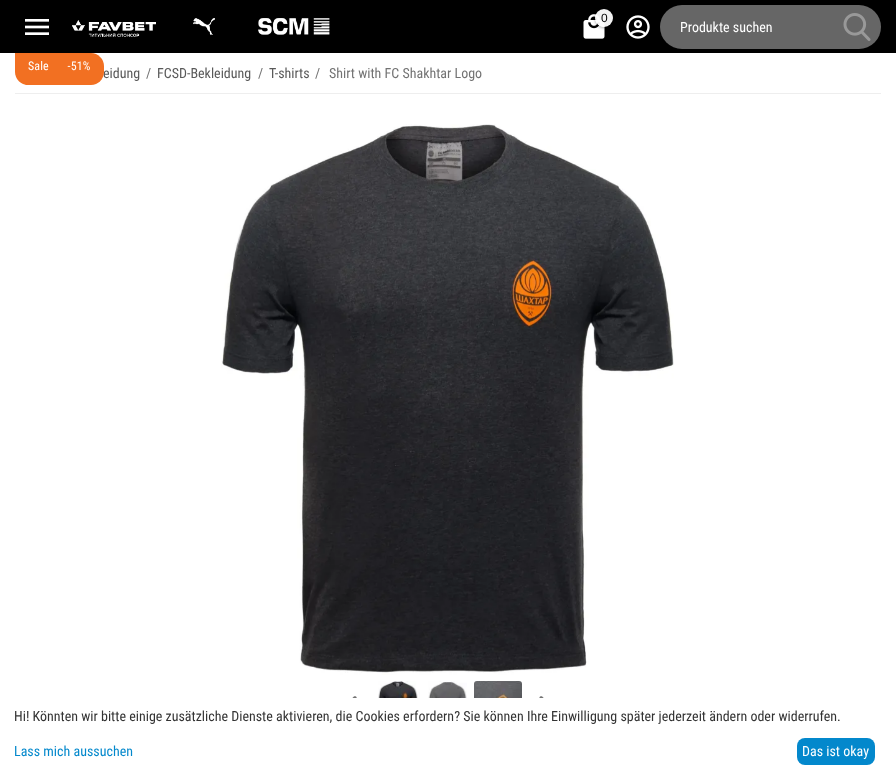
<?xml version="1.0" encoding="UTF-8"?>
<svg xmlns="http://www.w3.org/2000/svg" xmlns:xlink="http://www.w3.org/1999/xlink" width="896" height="779">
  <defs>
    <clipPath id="clip1"><path d="M 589 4 h 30 v 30 h -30 z m 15 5 c 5 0 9 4 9 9 c 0 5 -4 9 -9 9 c -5 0 -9 -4 -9 -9 c 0 -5 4 -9 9 -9 z" clip-rule="evenodd" /></clipPath>
  </defs>
  <rect width="100%" height="100%" fill="#ffffff" />
  <rect width="896" height="53" fill="#000000" />
  <image x="25" y="19" width="24" height="16" xlink:href="image1.png" />
  <image x="72" y="20" width="84" height="17" xlink:href="image2.png" />
  <image x="193" y="18" width="22" height="17" xlink:href="image3.png" />
  <image x="258" y="18" width="72" height="17" xlink:href="image4.png" />
  <image x="583" y="14" width="22" height="25" xlink:href="image5.png" />
  <g clip-path="url(#clip1)">
    <rect x="595" y="10" width="18" height="18" rx="9" fill="#000000" fill-opacity="0.35" filter="blur(1.5px)" />
  </g>
  <circle cx="604" cy="18" r="9" fill="#ffffff" fill-opacity="0.95" />
  <image x="626" y="15" width="24" height="24" xlink:href="image6.png" />
  <rect x="660" y="5" width="221" height="44" rx="22" fill="#666666" />
  <image x="843" y="13" width="28" height="28" xlink:href="image7.png" />
  <image x="221" y="124" width="453" height="551" xlink:href="image8.png" />
  <image x="378" y="681" width="42" height="17" xlink:href="image9.png" />
  <image x="428" y="681" width="39" height="17" xlink:href="image10.png" />
  <image x="474" y="681" width="48" height="17" xlink:href="image11.png" />
  <image x="352" y="696" width="5" height="2" xlink:href="image12.png" />
  <image x="539" y="696" width="5" height="2" xlink:href="image13.png" />
  <rect x="15" y="93" width="866" height="1" fill="#eeeeee" />
  <rect x="797" y="738" width="78" height="27" rx="8" fill="#0388cc" />
  <text x="601" y="22" style="font-family: Liberation Sans; font-size: 12px; fill: #000000">0</text>
  <text x="680" y="32" style="font-family: Roboto Condensed; font-size: 14px; fill: #ffffff">Produkte suchen</text>
  <text x="103" y="78" style="font-family: Roboto Condensed; font-size: 14px; fill: #595959">eidung</text>
  <path d="M 15 53 h 76 c 7 0 13 6 13 13 v 6 c 0 7 -6 13 -13 13 h -63 c -7 0 -13 -6 -13 -13 z" fill="#f27022" />
  <text x="28" y="70" word-spacing="16" style="font-family: Roboto Condensed; font-size: 12px; letter-spacing: 0.1px; fill: #ffffff">Sale -51%</text>
  <text x="146" y="78" style="font-family: Roboto Condensed; font-size: 14px; fill: #737373">/</text>
  <text x="157" y="78" style="font-family: Roboto Condensed; font-size: 14px; fill: #595959">FCSD-Bekleidung</text>
  <text x="258" y="78" style="font-family: Roboto Condensed; font-size: 14px; fill: #737373">/</text>
  <text x="269" y="78" style="font-family: Roboto Condensed; font-size: 14px; fill: #595959">T-shirts</text>
  <text x="315" y="78" style="font-family: Roboto Condensed; font-size: 14px; fill: #737373">/</text>
  <text x="329" y="78" style="font-family: Roboto Condensed; font-size: 14px; fill: #737373">Shirt with FC Shakhtar Logo</text>
  <text x="14" y="721" style="font-family: Roboto Condensed; font-size: 14px; fill: #333333">Hi! Könnten wir bitte einige zusätzliche Dienste aktivieren, die Cookies erfordern? Sie können Ihre Einwilligung später jederzeit ändern oder widerrufen.</text>
  <text x="14" y="756" style="font-family: Roboto Condensed; font-size: 14px; fill: #0388cc">Lass mich aussuchen</text>
  <text x="802" y="756" style="font-family: Roboto Condensed; font-size: 14px; fill: #ffffff">Das ist okay</text>
</svg>
